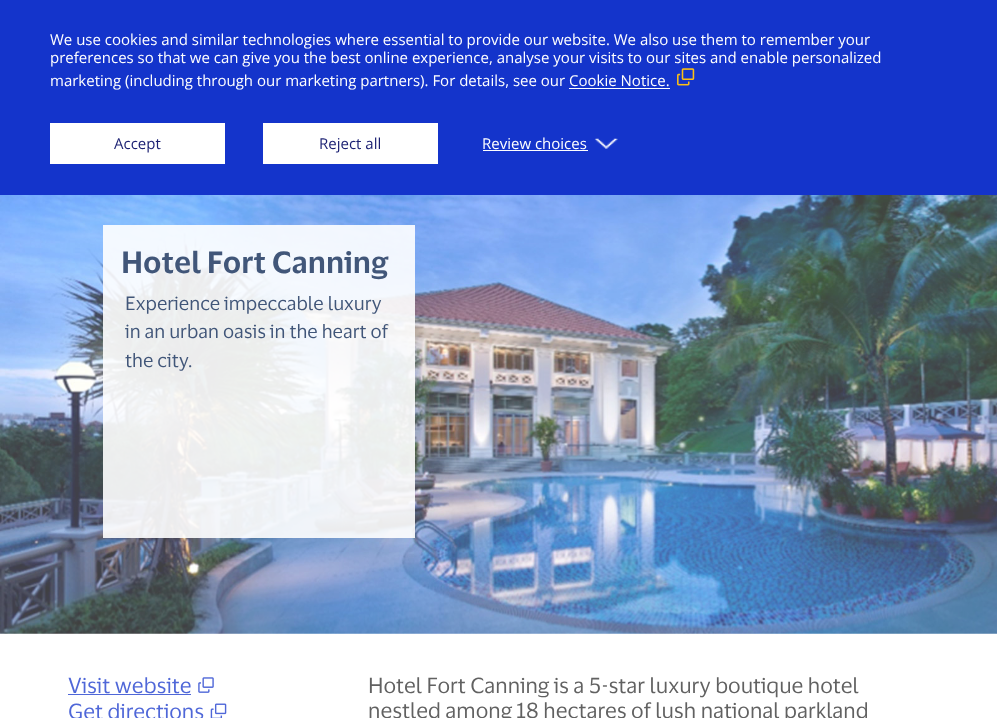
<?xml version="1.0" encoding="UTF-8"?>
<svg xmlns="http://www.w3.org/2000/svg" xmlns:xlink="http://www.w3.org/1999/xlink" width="997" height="718">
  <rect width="100%" height="100%" fill="#ffffff" />
  <rect width="997" height="195" fill="#1434cb" />
  <image x="677" y="68" width="18" height="18" xlink:href="image1.png" />
  <rect x="569" y="88" width="101" height="1" fill="#ffffff" />
  <rect x="50" y="123" width="175" height="41" fill="#ffffff" />
  <rect x="263" y="123" width="175" height="41" fill="#ffffff" />
  <rect x="483" y="150" width="105" height="1" fill="#ffffff" />
  <image x="594" y="138" width="24" height="11" xlink:href="image2.png" />
  <image x="0" y="195" width="997" height="439" xlink:href="image3.png" />
  <rect x="103" y="225" width="312" height="313" fill="#ffffff" fill-opacity="0.9" />
  <rect x="68" y="694" width="123" height="1" fill="#4f67d8" />
  <image x="198" y="677" width="16" height="16" xlink:href="image4.png" />
  <image x="210" y="703" width="17" height="15" xlink:href="image5.png" />
  <text x="50" y="45" style="font-family: Open Sans; font-size: 15px; fill: #ffffff">We use cookies and similar technologies where essential to provide our website. We also use them to remember your</text>
  <text x="50" y="63" style="font-family: Open Sans; font-size: 15px; fill: #ffffff">preferences so that we can give you the best online experience, analyse your visits to our sites and enable personalized</text>
  <text x="50" y="86" style="font-family: Open Sans; font-size: 15px; fill: #ffffff">marketing (including through our marketing partners). For details, see our Cookie Notice.</text>
  <text x="114" y="149" style="font-family: Open Sans; font-size: 15px; fill: #1a1f72">Accept</text>
  <text x="319" y="149" style="font-family: Open Sans; font-size: 15px; fill: #1a1f72">Reject all</text>
  <text x="482" y="149" style="font-family: Open Sans; font-size: 15px; fill: #ffffff">Review choices</text>
  <text x="121" y="273" style="font-family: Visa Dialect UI; font-size: 30px; font-weight: 600; fill: #415679">Hotel Fort Canning</text>
  <text x="125" y="310" style="font-family: Visa Dialect UI; font-size: 18.75px; fill: #415679">Experience impeccable luxury</text>
  <text x="125" y="338" style="font-family: Visa Dialect UI; font-size: 18.75px; fill: #415679">in an urban oasis in the heart of</text>
  <text x="125" y="367" style="font-family: Visa Dialect UI; font-size: 18.75px; fill: #415679">the city.</text>
  <text x="68" y="693" style="font-family: Visa Dialect UI; font-size: 21.25px; fill: #4f67d8">Visit website</text>
  <text x="68" y="719" style="font-family: Visa Dialect UI; font-size: 21.25px; fill: #4f67d8">Get directions</text>
  <text x="368" y="693" style="font-family: Visa Dialect UI; font-size: 21.25px; fill: #616161">Hotel Fort Canning is a 5-star luxury boutique hotel</text>
  <text x="368" y="718" style="font-family: Visa Dialect UI; font-size: 21.25px; fill: #616161">nestled among 18 hectares of lush national parkland</text>
</svg>
